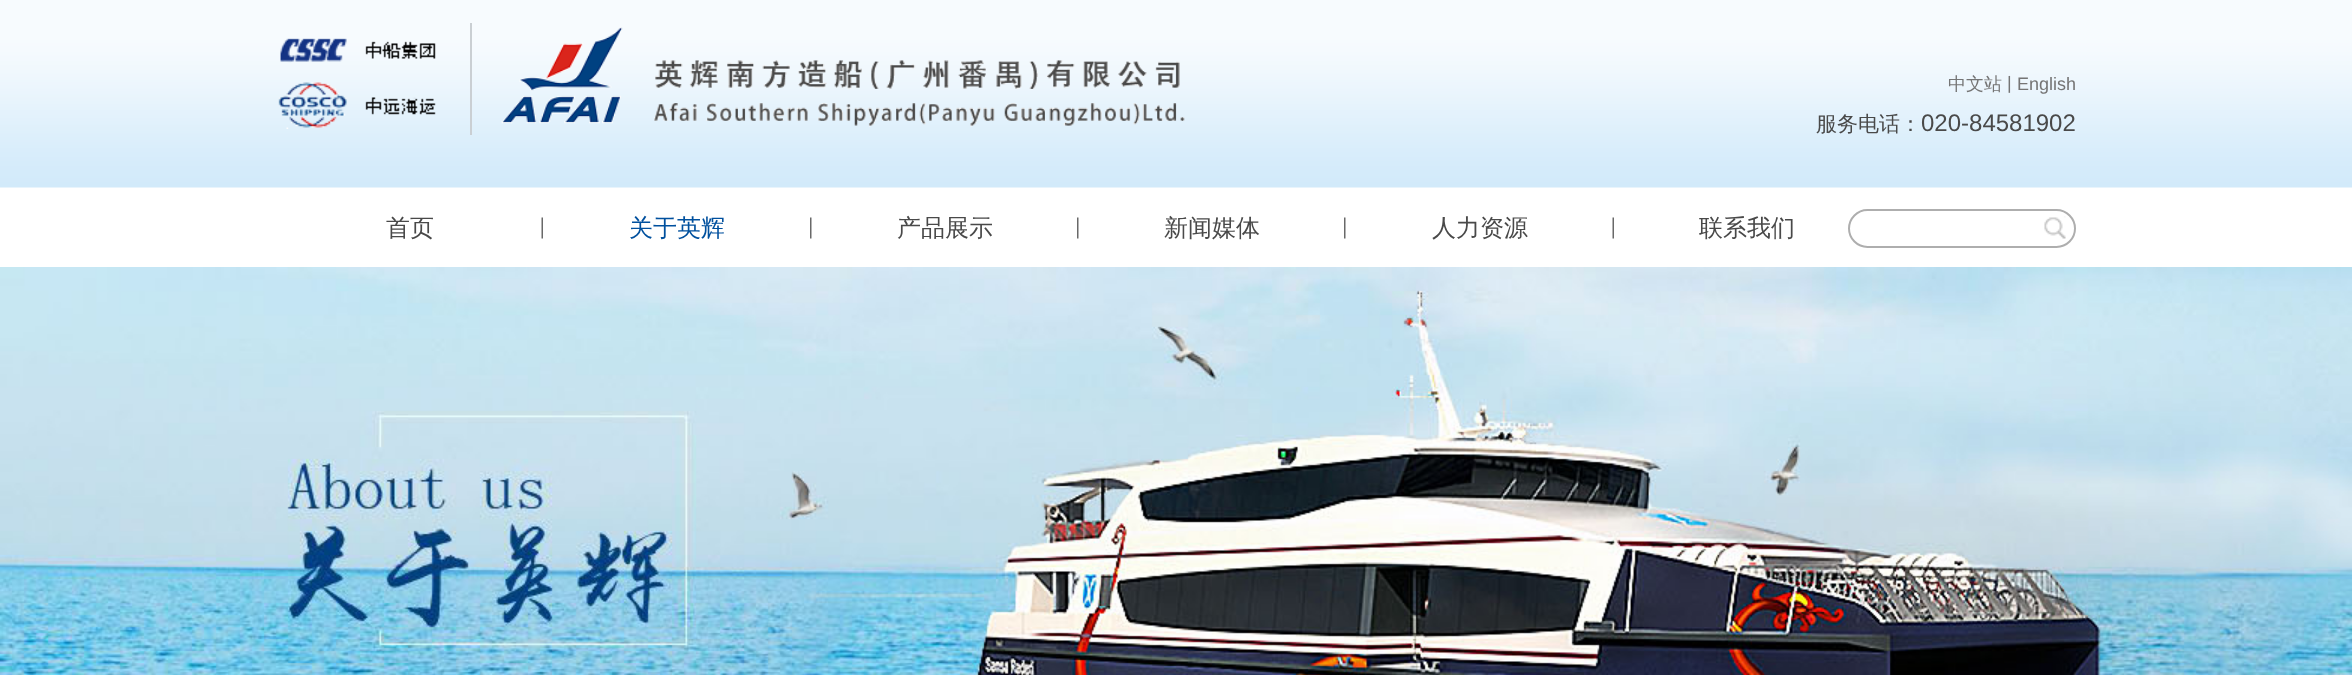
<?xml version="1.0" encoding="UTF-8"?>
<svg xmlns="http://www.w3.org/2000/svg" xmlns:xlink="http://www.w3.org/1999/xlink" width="2352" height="675">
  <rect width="100%" height="100%" fill="#ffffff" />
  <image x="0" y="0" width="2352" height="188" xlink:href="image1.png" />
  <image x="280" y="38" width="156" height="25" xlink:href="image2.png" />
  <image x="278" y="82" width="158" height="47" xlink:href="image3.png" />
  <rect x="470" y="23" width="2" height="112" fill="#cacfd3" />
  <image x="501" y="27" width="684" height="100" xlink:href="image4.png" />
  <image x="541" y="217" width="2" height="22" xlink:href="image5.png" />
  <image x="810" y="217" width="2" height="22" xlink:href="image6.png" />
  <image x="1077" y="217" width="2" height="22" xlink:href="image6.png" />
  <image x="1344" y="217" width="2" height="22" xlink:href="image6.png" />
  <image x="1612" y="217" width="2" height="22" xlink:href="image5.png" />
  <image x="2044" y="216" width="22" height="23" xlink:href="image7.png" />
  <rect x="1849" y="210" width="226" height="37" rx="18.5" fill="none" stroke="#aeaeae" stroke-width="2" />
  <image x="0" y="267" width="2352" height="408" xlink:href="image8.png" />
  <text x="1948" y="90" style="font-family: WenQuanYi Zen Hei; font-size: 18px; font-weight: 500; fill: #757575">中文站</text>
  <text x="2007" y="89" style="font-family: Liberation Sans; font-size: 18px; fill: #757575">|</text>
  <text x="2017" y="90" style="font-family: Liberation Sans; font-size: 18px; fill: #757575">English</text>
  <text x="1816" y="131" style="font-family: WenQuanYi Zen Hei; font-size: 21px; font-weight: 500; fill: #494949">服务电话：</text>
  <text x="1921" y="131" style="font-family: Liberation Sans; font-size: 24px; fill: #494949">020-84581902</text>
  <text x="386" y="236" style="font-family: WenQuanYi Zen Hei; font-size: 24px; font-weight: 500; fill: #494949">首页</text>
  <text x="629" y="236" style="font-family: WenQuanYi Zen Hei; font-size: 24px; font-weight: 500; fill: #00509e">关于英辉</text>
  <text x="897" y="236" style="font-family: WenQuanYi Zen Hei; font-size: 24px; font-weight: 500; fill: #494949">产品展示</text>
  <text x="1164" y="236" style="font-family: WenQuanYi Zen Hei; font-size: 24px; font-weight: 500; fill: #494949">新闻媒体</text>
  <text x="1432" y="236" style="font-family: WenQuanYi Zen Hei; font-size: 24px; font-weight: 500; fill: #494949">人力资源</text>
  <text x="1699" y="236" style="font-family: WenQuanYi Zen Hei; font-size: 24px; font-weight: 500; fill: #494949">联系我们</text>
</svg>
